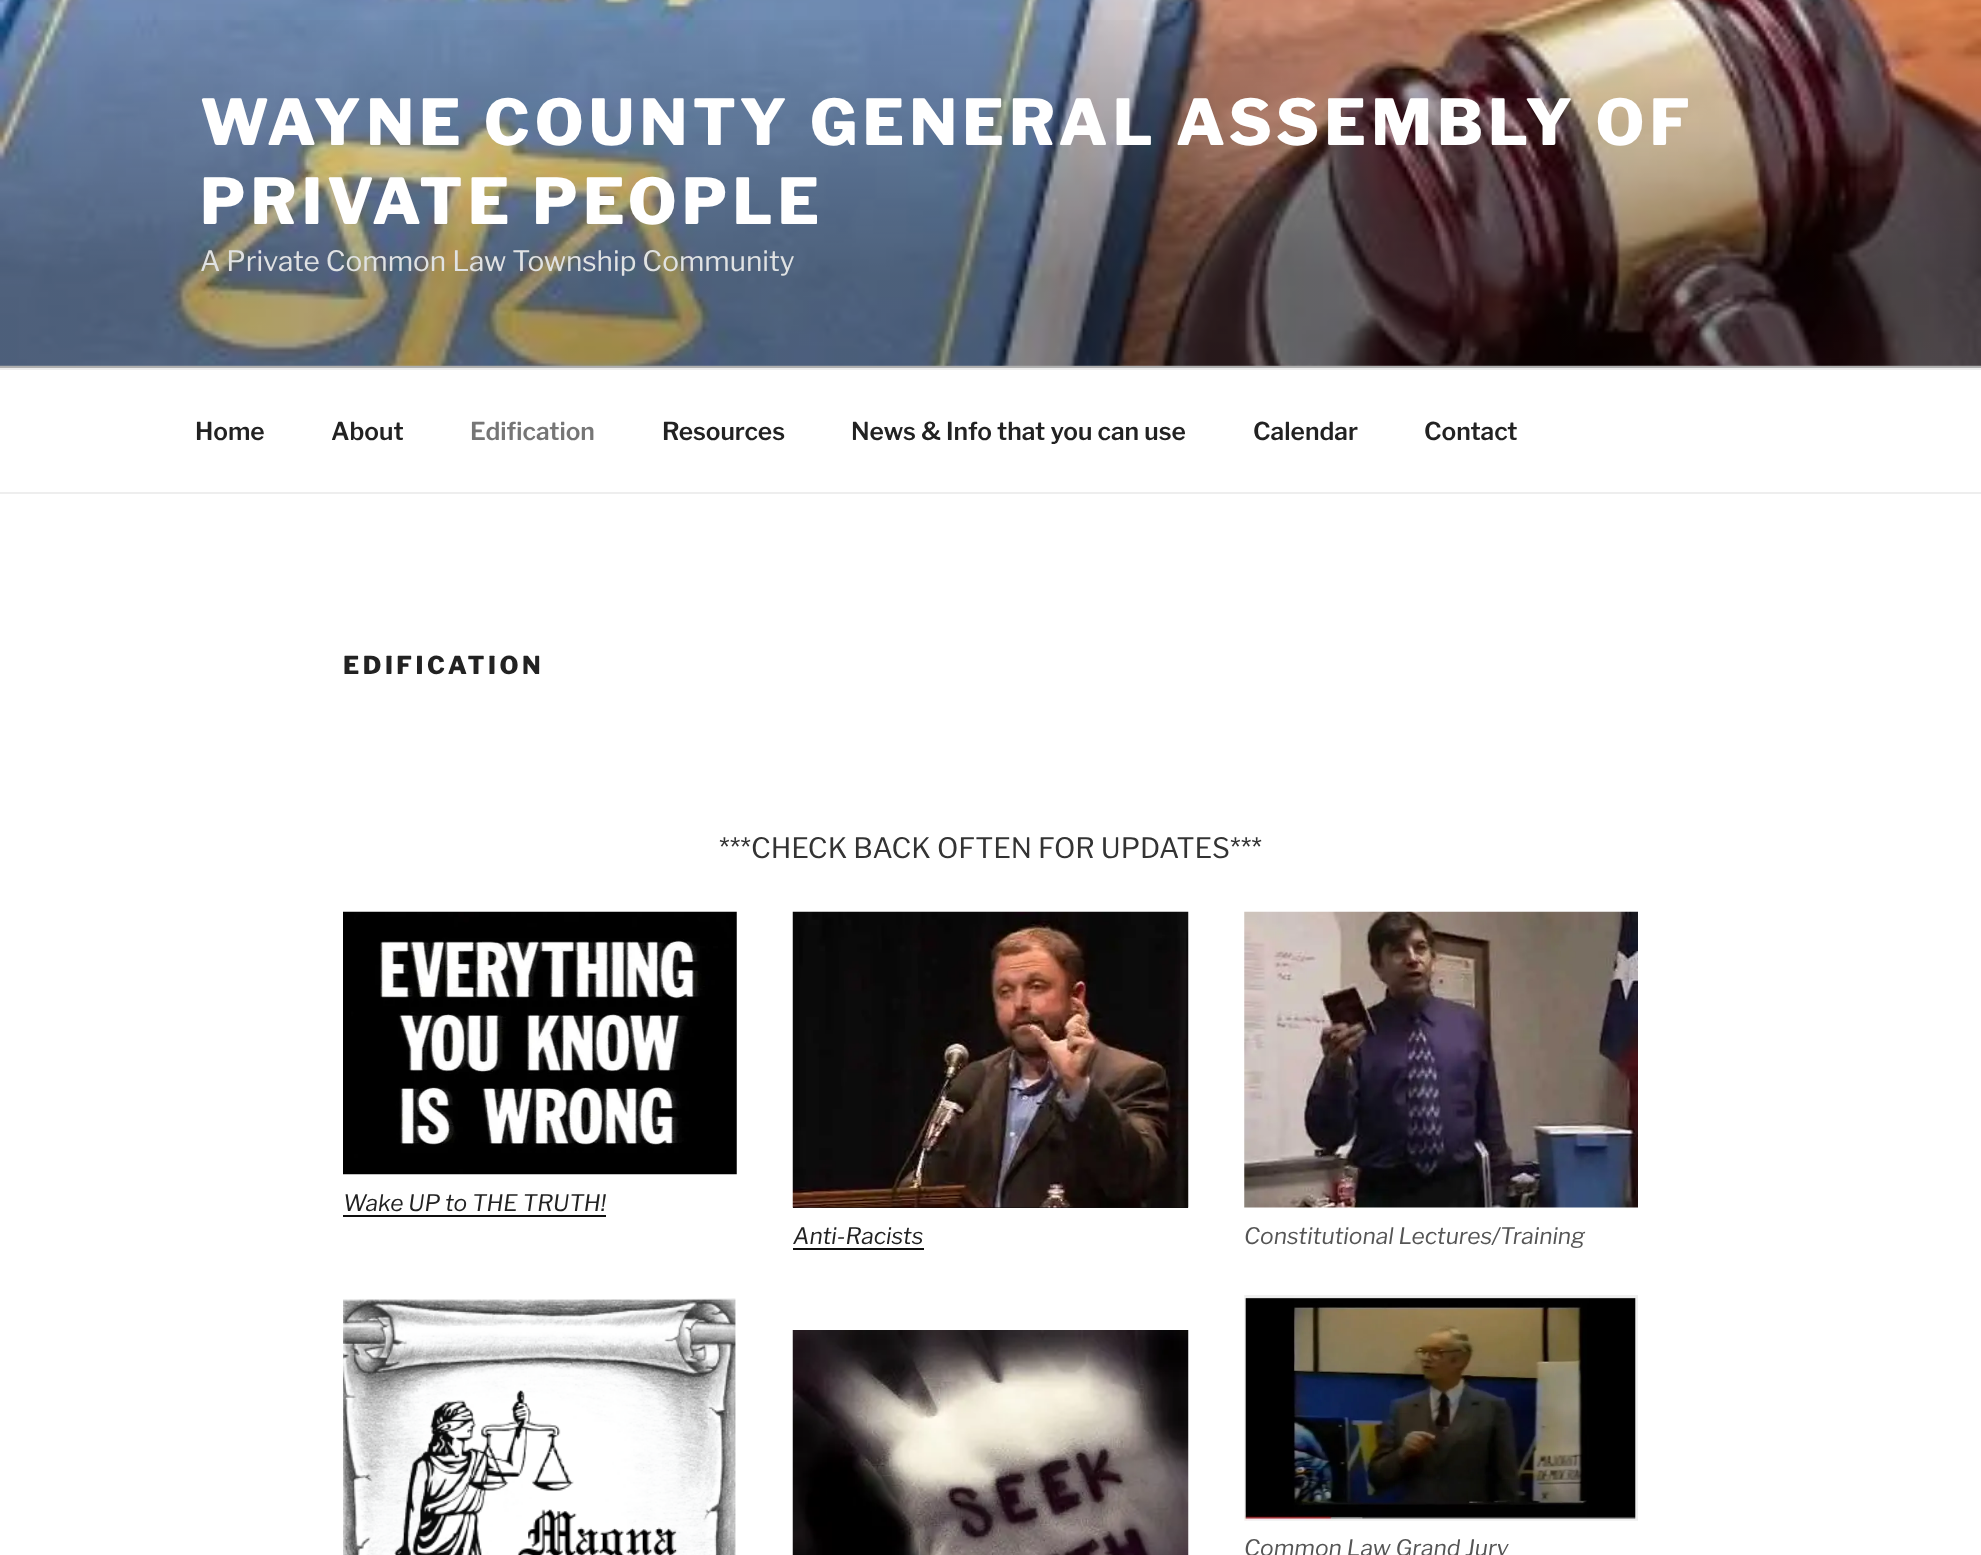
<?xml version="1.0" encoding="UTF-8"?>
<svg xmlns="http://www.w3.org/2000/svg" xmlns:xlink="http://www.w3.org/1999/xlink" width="1981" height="1555">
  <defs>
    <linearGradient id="g1" gradientUnits="userSpaceOnUse" x1="991" y1="0" x2="991" y2="368"><stop offset="0" stop-color="#000000" stop-opacity="0" /><stop offset="0.75" stop-color="#000000" stop-opacity="0.3" /><stop offset="1" stop-color="#000000" stop-opacity="0.3" /></linearGradient>
  </defs>
  <rect width="100%" height="100%" fill="#ffffff" />
  <rect y="365" width="1981" height="3" fill="#fafafa" />
  <image x="0" y="0" width="1981" height="366" xlink:href="image1.png" />
  <rect y="20" width="1981" height="348" fill="url(#g1)" />
  <rect y="368" width="1981" height="2" fill="#eeeeee" />
  <rect y="492" width="1981" height="2" fill="#eeeeee" />
  <image x="343" y="911" width="394" height="264" xlink:href="image2.png" />
  <rect x="343" y="1215" width="263" height="2" fill="#0f0f0f" />
  <image x="343" y="1298" width="393" height="257" xlink:href="image3.png" />
  <rect x="793" y="1207" width="395" height="1" fill="#0f0f0f" />
  <image x="792" y="911" width="397" height="297" xlink:href="image4.png" />
  <rect x="793" y="1248" width="131" height="2" fill="#0f0f0f" />
  <image x="792" y="1330" width="397" height="225" xlink:href="image5.png" />
  <image x="1244" y="911" width="394" height="297" xlink:href="image6.png" />
  <image x="1244" y="1295" width="394" height="226" xlink:href="image7.png" />
  <text x="200" y="145" style="font-family: Libre Franklin; font-size: 63px; font-weight: 800; letter-spacing: 5.05px; fill: #ffffff">WAYNE COUNTY GENERAL ASSEMBLY OF</text>
  <text x="200" y="224" style="font-family: Libre Franklin; font-size: 63px; font-weight: 800; letter-spacing: 5.05px; fill: #ffffff">PRIVATE PEOPLE</text>
  <text x="200" y="271" style="font-family: Libre Franklin; font-size: 28px; fill: #e0e2e3">A Private Common Law Township Community</text>
  <text x="195" y="440" style="font-family: Libre Franklin; font-size: 24.5px; font-weight: 600; fill: #222222">Home</text>
  <text x="331" y="440" style="font-family: Libre Franklin; font-size: 24.5px; font-weight: 600; fill: #222222">About</text>
  <text x="470" y="440" style="font-family: Libre Franklin; font-size: 24.5px; font-weight: 600; fill: #767676">Edification</text>
  <text x="662" y="440" style="font-family: Libre Franklin; font-size: 24.5px; font-weight: 600; fill: #222222">Resources</text>
  <text x="851" y="440" style="font-family: Libre Franklin; font-size: 24.5px; font-weight: 600; fill: #222222">News &amp; Info that you can use</text>
  <text x="1253" y="440" style="font-family: Libre Franklin; font-size: 24.5px; font-weight: 600; fill: #222222">Calendar</text>
  <text x="1424" y="440" style="font-family: Libre Franklin; font-size: 24.5px; font-weight: 600; fill: #222222">Contact</text>
  <text x="343" y="674" style="font-family: Libre Franklin; font-size: 24.5px; font-weight: 800; letter-spacing: 3.5px; fill: #222222">EDIFICATION</text>
  <text x="719" y="858" style="font-family: Libre Franklin; font-size: 28px; fill: #333333">***CHECK BACK OFTEN FOR UPDATES***</text>
  <text x="343" y="1211" style="font-family: Libre Franklin; font-size: 22.75px; font-style: italic; fill: #222222">Wake UP to THE TRUTH!</text>
  <text x="793" y="1244" style="font-family: Libre Franklin; font-size: 22.75px; font-style: italic; fill: #222222">Anti-Racists</text>
  <text x="1244" y="1244" style="font-family: Libre Franklin; font-size: 22.75px; font-style: italic; fill: #555555">Constitutional Lectures/Training</text>
  <text x="1244" y="1556" style="font-family: Libre Franklin; font-size: 22.75px; font-style: italic; fill: #555555">Common Law Grand Jury</text>
</svg>
